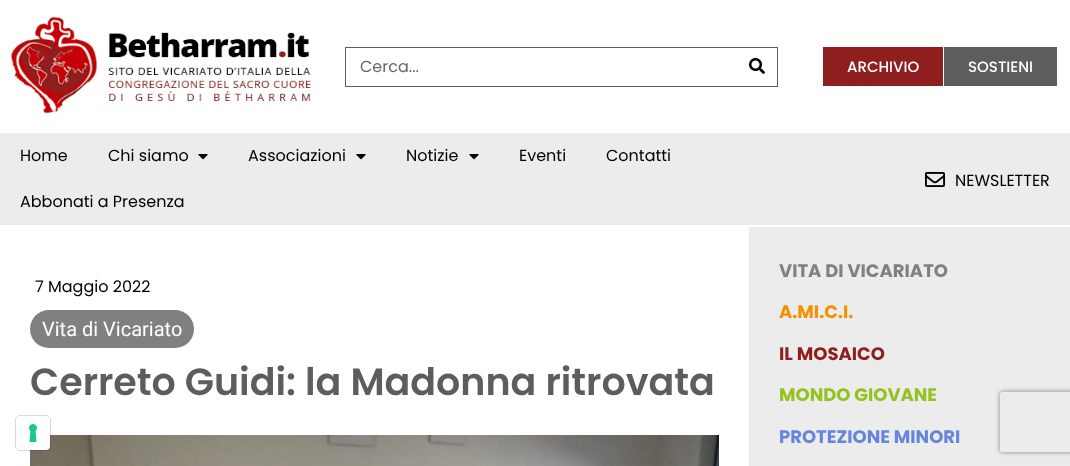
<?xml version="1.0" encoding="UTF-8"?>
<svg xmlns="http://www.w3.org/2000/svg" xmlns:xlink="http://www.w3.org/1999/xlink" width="1070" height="466">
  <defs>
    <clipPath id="clip1"><path d="M 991 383 h 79 v 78 h -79 z m 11 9 h 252 c 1 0 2 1 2 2 v 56 c 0 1 -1 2 -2 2 h -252 c -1 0 -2 -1 -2 -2 v -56 c 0 -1 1 -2 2 -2 z" clip-rule="evenodd" /></clipPath>
  </defs>
  <rect width="100%" height="100%" fill="#ffffff" />
  <image x="10" y="16" width="301" height="107" xlink:href="image1.png" />
  <rect x="345.5" y="47.5" width="432" height="39" fill="none" stroke="#5d5d5d" />
  <image x="749" y="58" width="16" height="16" xlink:href="image2.png" />
  <rect x="823" y="47" width="120" height="39" fill="#8f1f1e" />
  <rect x="944" y="47" width="113" height="39" fill="#5d5d5d" />
  <rect y="133" width="1070" height="92" fill="#ececec" />
  <image x="198" y="154" width="10" height="6" xlink:href="image3.png" />
  <image x="356" y="154" width="10" height="6" xlink:href="image3.png" />
  <image x="469" y="154" width="10" height="6" xlink:href="image3.png" />
  <image x="925" y="172" width="20" height="15" xlink:href="image4.png" />
  <rect x="30" y="310" width="164" height="38" rx="19" fill="#808080" />
  <image x="30" y="435" width="689" height="31" xlink:href="image5.png" />
  <rect x="749" y="227" width="321" height="239" fill="#ececec" />
  <g clip-path="url(#clip1)">
    <rect x="1000" y="392" width="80" height="60" rx="2" fill="#808080" filter="blur(2.5px)" />
  </g>
  <rect x="15.5" y="415.5" width="35" height="35" rx="4.5" fill="none" stroke="#000000" stroke-opacity="0.15" />
  <rect x="16" y="416" width="34" height="34" rx="4" fill="#ffffff" />
  <image x="29" y="424" width="8" height="18" xlink:href="image6.png" />
  <text x="360" y="72" style="font-family: Poppins; font-size: 16px; fill: #666666">Cerca...</text>
  <text x="847" y="72" style="font-family: Poppins; font-size: 15px; font-weight: 500; fill: #ffffff">ARCHIVIO</text>
  <text x="968" y="72" style="font-family: Poppins; font-size: 15px; font-weight: 500; fill: #ffffff">SOSTIENI</text>
  <text x="20" y="161" style="font-family: Poppins; font-size: 16px; fill: #000000">Home</text>
  <text x="108" y="161" style="font-family: Poppins; font-size: 16px; fill: #000000">Chi siamo</text>
  <text x="248" y="161" style="font-family: Poppins; font-size: 16px; fill: #000000">Associazioni</text>
  <text x="406" y="161" style="font-family: Poppins; font-size: 16px; fill: #000000">Notizie</text>
  <text x="519" y="161" style="font-family: Poppins; font-size: 16px; fill: #000000">Eventi</text>
  <text x="606" y="161" style="font-family: Poppins; font-size: 16px; fill: #000000">Contatti</text>
  <text x="20" y="207" style="font-family: Poppins; font-size: 16px; fill: #000000">Abbonati a Presenza</text>
  <text x="955" y="186" style="font-family: Poppins; font-size: 16px; fill: #000000">NEWSLETTER</text>
  <text x="35" y="292" style="font-family: Poppins; font-size: 16px; fill: #000000">7 Maggio 2022</text>
  <text x="42" y="336" style="font-family: Roboto; font-size: 20px; fill: #ffffff">Vita di Vicariato</text>
  <text x="30" y="395" style="font-family: Poppins; font-size: 38px; font-weight: 600; fill: #5d5d5d">Cerreto Guidi: la Madonna ritrovata</text>
  <text x="779" y="277" style="font-family: Poppins; font-size: 18px; font-weight: bold; fill: #808080">VITA DI VICARIATO</text>
  <text x="779" y="318" style="font-family: Poppins; font-size: 18px; font-weight: bold; fill: #f29200">A.MI.C.I.</text>
  <text x="779" y="360" style="font-family: Poppins; font-size: 18px; font-weight: bold; fill: #8f1f1e">IL MOSAICO</text>
  <text x="779" y="401" style="font-family: Poppins; font-size: 18px; font-weight: bold; fill: #95c221">MONDO GIOVANE</text>
  <text x="779" y="443" style="font-family: Poppins; font-size: 18px; font-weight: bold; fill: #6486de">PROTEZIONE MINORI</text>
</svg>
